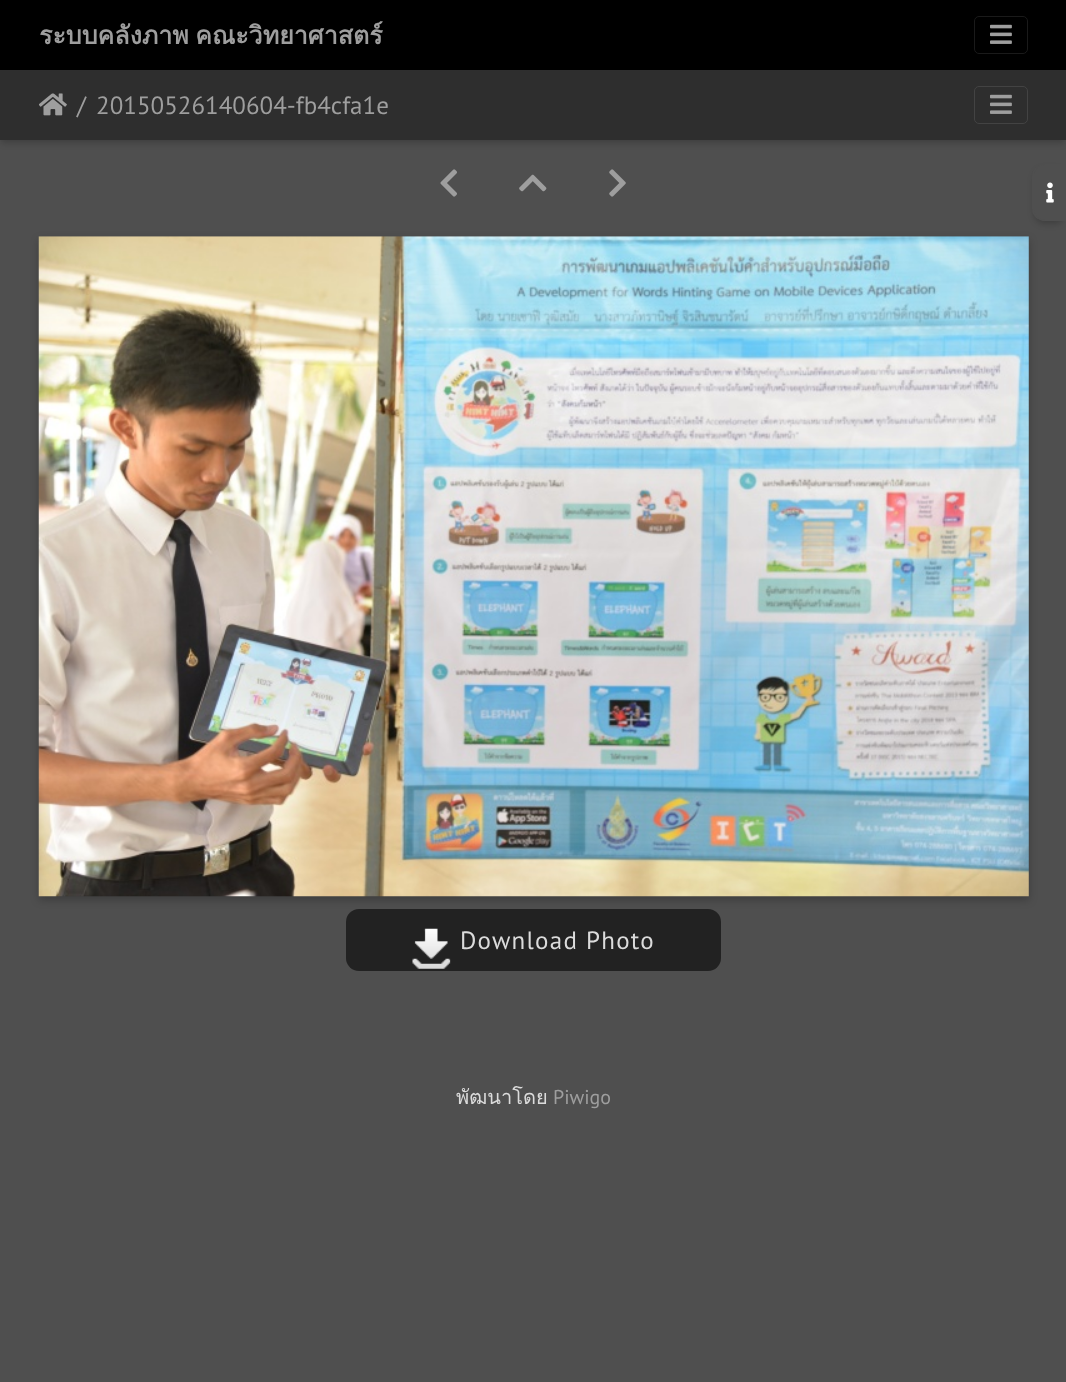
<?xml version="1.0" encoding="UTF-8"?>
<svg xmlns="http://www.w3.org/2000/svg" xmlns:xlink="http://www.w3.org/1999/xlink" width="1066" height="1382">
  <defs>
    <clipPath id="clip1"><path d="M 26 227 h 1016 v 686 h -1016 z m 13 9 h 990 v 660 h -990 z" clip-rule="evenodd" /></clipPath>
  </defs>
  <rect width="100%" height="100%" fill="#4f4f4f" />
  <rect x="1" y="75" width="1064" height="68" fill="#000000" fill-opacity="0.2" filter="blur(3px)" />
  <rect width="1066" height="70" fill="#000000" />
  <rect x="974.5" y="16.5" width="53" height="37" rx="4.5" fill="none" stroke="#1a1a1a" />
  <image x="990" y="24" width="22" height="20" xlink:href="image1.png" />
  <rect y="70" width="1066" height="70" fill="#2e2e2e" />
  <image x="39" y="93" width="28" height="23" xlink:href="image2.png" />
  <rect x="974.5" y="86.5" width="53" height="37" rx="4.5" fill="none" stroke="#434343" />
  <image x="990" y="94" width="22" height="20" xlink:href="image3.png" />
  <image x="440" y="169" width="17" height="28" xlink:href="image4.png" />
  <image x="519" y="174" width="28" height="18" xlink:href="image5.png" />
  <image x="609" y="169" width="17" height="28" xlink:href="image6.png" />
  <rect x="1034" y="169" width="31" height="55" rx="11" fill="#000000" fill-opacity="0.2" filter="blur(3px)" />
  <path d="M 1046 164 h 20 v 57 h -20 c -7 0 -13 -6 -13 -13 v -31 c 0 -7 6 -13 13 -13 z" fill="#4f4f4f" />
  <path d="M 1045 164 h 21 v 57 h -21 c -7 0 -13 -5 -13 -12 v -33 c 0 -7 6 -12 13 -12 z m 0 1 h 21 v 55 h -21 c -6 0 -11 -5 -11 -11 v -33 c 0 -6 5 -11 11 -11 z" fill="#4f4f4f" fill-rule="evenodd" />
  <image x="1046" y="182" width="8" height="21" xlink:href="image7.png" />
  <rect x="346" y="909" width="375" height="62" rx="13" fill="#222222" />
  <g clip-path="url(#clip1)">
    <rect x="39" y="240" width="990" height="660" fill="#000000" fill-opacity="0.23" filter="blur(4px)" />
  </g>
  <image x="38" y="236" width="991" height="661" xlink:href="image8.png" />
  <image x="412" y="928" width="39" height="41" xlink:href="image9.png" />
  <text x="39" y="44" word-spacing="-2" style="font-family: Loma; font-size: 25px; font-weight: bold; fill: #9e9e9e">ระบบคลังภาพ คณะวิทยาศาสตร์</text>
  <text x="77" y="114" style="font-family: PT Sans; font-size: 25px; fill: #9e9e9e">/</text>
  <text x="96" y="114" style="font-family: PT Sans; font-size: 25px; fill: #9e9e9e">20150526140604-fb4cfa1e</text>
  <text x="460" y="949" style="font-family: PT Sans; font-size: 25px; letter-spacing: 1.25px; fill: #dbdbdb">Download Photo</text>
  <text x="456" y="1104" style="font-family: Loma; font-size: 20px; fill: #dbdbdb">พัฒนาโดย</text>
  <text x="553" y="1104" style="font-family: PT Sans; font-size: 20px; fill: #9e9e9e">Piwigo</text>
</svg>
